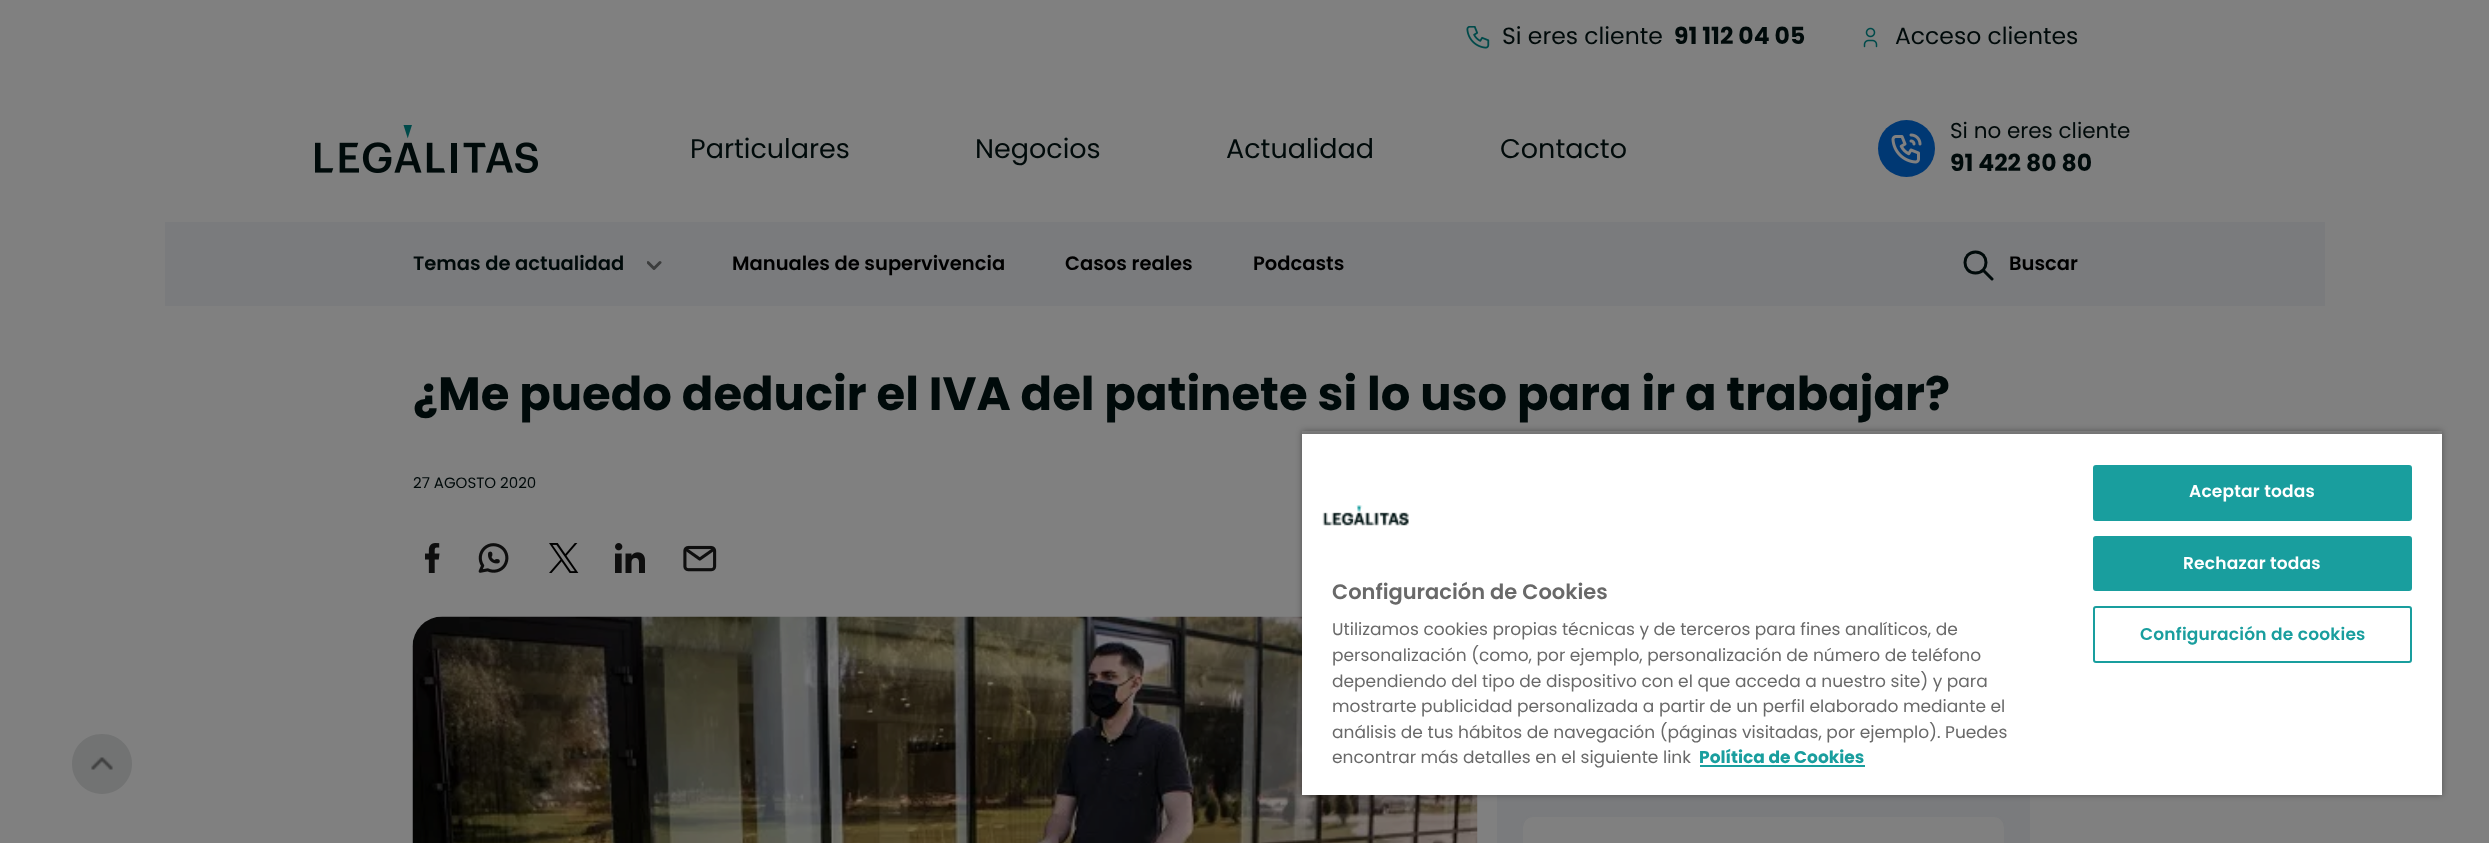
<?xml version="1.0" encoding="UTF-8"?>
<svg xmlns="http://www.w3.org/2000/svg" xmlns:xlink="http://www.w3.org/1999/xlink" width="2489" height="843">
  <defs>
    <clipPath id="clip1"><rect x="647" y="260" width="15" height="10" /></clipPath>
    <clipPath id="clip2"><path d="M 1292 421 h 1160 v 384 h -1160 z m 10 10 h 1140 v 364 h -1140 z" clip-rule="evenodd" /></clipPath>
    <clipPath id="clip3"><rect x="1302" y="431" width="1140" height="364" /></clipPath>
  </defs>
  <rect width="100%" height="100%" fill="#808080" />
  <image x="1466" y="26" width="24" height="23" xlink:href="image1.png" />
  <image x="1863" y="27" width="15" height="21" xlink:href="image2.png" />
  <image x="315" y="125" width="223" height="48" xlink:href="image3.png" />
  <circle cx="1906.5" cy="148.5" r="28.5" fill="#003873" />
  <image x="1891" y="133" width="31" height="31" xlink:href="image4.png" />
  <rect x="165" y="222" width="2160" height="84" fill="#7a7b7d" />
  <g clip-path="url(#clip1)">
    <path d="M 648 262.5 l 6 6 l 6 -6" fill="none" stroke="#3c3d3d" stroke-width="3" stroke-linecap="round" stroke-linejoin="round" />
  </g>
  <path d="M 1975.5 273 c 14 0 14 -21 0 -21 c -14 0 -14 21 0 21 z m 16.5 6 l -9 -9" fill="none" stroke="#000a0a" stroke-width="3" stroke-linecap="round" stroke-linejoin="round" />
  <image x="425" y="543" width="15" height="30" xlink:href="image5.png" />
  <image x="478" y="543" width="31" height="30" xlink:href="image6.png" />
  <image x="549" y="543" width="30" height="30" xlink:href="image7.png" />
  <image x="615" y="543" width="30" height="30" xlink:href="image8.png" />
  <image x="683" y="545" width="34" height="27" xlink:href="image9.png" />
  <image x="412" y="616" width="1066" height="227" xlink:href="image10.png" />
  <rect x="1497" y="795" width="533" height="48" fill="#7a7b7d" />
  <rect x="1523" y="816" width="481" height="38" rx="11" fill="#808080" />
  <rect x="1522" y="816" width="483" height="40" rx="11" fill="none" stroke="#7a7b7d" stroke-width="2" />
  <path d="M 72 764 c 0 -17 13 -30 30 -30 c 17 0 30 13 30 30 c 0 16 -13 30 -30 30 c -17 0 -30 -14 -30 -30 z" fill="#727373" />
  <image x="91" y="757" width="22" height="13" xlink:href="image11.png" />
  <g clip-path="url(#clip2)">
    <rect x="1302" y="431" width="1140" height="364" fill="#000000" fill-opacity="0.35" filter="blur(3px)" />
  </g>
  <g clip-path="url(#clip3)">
    <rect x="1302" y="434" width="1140" height="361" fill="#000000" fill-opacity="0.2" filter="blur(3px)" />
  </g>
  <rect x="1302" y="434" width="1140" height="361" fill="#ffffff" />
  <rect x="2094" y="466" width="317" height="54" rx="2" fill="#199e9e" stroke="#199e9e" stroke-width="2" />
  <rect x="2094" y="537" width="317" height="53" rx="2" fill="#199e9e" stroke="#199e9e" stroke-width="2" />
  <rect x="2094" y="607" width="317" height="55" rx="2" fill="none" stroke="#199e9e" stroke-width="2" />
  <image x="1322" y="505" width="87" height="21" xlink:href="image12.png" />
  <rect x="1700" y="765" width="165" height="2" fill="#199e9e" />
  <text x="1502" y="44" style="font-family: Poppins; font-size: 23.5px; fill: #000a0a">Si eres cliente</text>
  <text x="1674" y="44" style="font-family: Poppins; font-size: 23.5px; font-weight: bold; fill: #000a0a">91 112 04 05</text>
  <text x="1895" y="44" style="font-family: Poppins; font-size: 23.5px; fill: #000a0a">Acceso clientes</text>
  <text x="690" y="158" style="font-family: Poppins; font-size: 27px; fill: #000a0a">Particulares</text>
  <text x="975" y="158" style="font-family: Poppins; font-size: 27px; fill: #000a0a">Negocios</text>
  <text x="1226" y="158" style="font-family: Poppins; font-size: 27px; fill: #000a0a">Actualidad</text>
  <text x="1500" y="158" style="font-family: Poppins; font-size: 27px; fill: #000a0a">Contacto</text>
  <text x="1950" y="138" style="font-family: Poppins; font-size: 21.5px; fill: #000a0a">Si no eres cliente</text>
  <text x="1950" y="171" style="font-family: Poppins; font-size: 23.5px; font-weight: bold; fill: #000a0a">91 422 80 80</text>
  <text x="413" y="270" style="font-family: Poppins; font-size: 19.5px; font-weight: 600; fill: #000a0a">Temas de actualidad</text>
  <text x="732" y="270" style="font-family: Poppins; font-size: 19.5px; font-weight: 600; fill: #000000">Manuales de supervivencia</text>
  <text x="1065" y="270" style="font-family: Poppins; font-size: 19.5px; font-weight: 600; fill: #000000">Casos reales</text>
  <text x="1253" y="270" style="font-family: Poppins; font-size: 19.5px; font-weight: 600; fill: #000000">Podcasts</text>
  <text x="2009" y="270" style="font-family: Poppins; font-size: 19.5px; font-weight: 600; fill: #000000">Buscar</text>
  <text x="413" y="410" style="font-family: Poppins; font-size: 46.5px; font-weight: bold; fill: #000a0a">¿Me puedo deducir el IVA del patinete si lo uso para ir a trabajar?</text>
  <text x="413" y="488" style="font-family: Poppins; font-size: 15px; fill: #000a0a">27 AGOSTO 2020</text>
  <text x="2189" y="497" style="font-family: Poppins; font-size: 17.05px; font-weight: 600; letter-spacing: 0.2px; fill: #ffffff">Aceptar todas</text>
  <text x="2183" y="569" style="font-family: Poppins; font-size: 17.05px; font-weight: 600; letter-spacing: 0.2px; fill: #ffffff">Rechazar todas</text>
  <text x="2140" y="640" style="font-family: Poppins; font-size: 17.05px; font-weight: 600; letter-spacing: 0.2px; fill: #199e9e">Configuración de cookies</text>
  <text x="1332" y="599" style="font-family: Poppins; font-size: 21px; font-weight: 600; fill: #696969">Configuración de Cookies</text>
  <text x="1332" y="635" style="font-family: Poppins; font-size: 17.05px; fill: #696969">Utilizamos cookies propias técnicas y de terceros para fines analíticos, de</text>
  <text x="1332" y="661" style="font-family: Poppins; font-size: 17.05px; fill: #696969">personalización (como, por ejemplo, personalización de número de teléfono</text>
  <text x="1332" y="687" style="font-family: Poppins; font-size: 17.05px; fill: #696969">dependiendo del tipo de dispositivo con el que acceda a nuestro site) y para</text>
  <text x="1332" y="712" style="font-family: Poppins; font-size: 17.05px; fill: #696969">mostrarte publicidad personalizada a partir de un perfil elaborado mediante el</text>
  <text x="1332" y="738" style="font-family: Poppins; font-size: 17.05px; fill: #696969">análisis de tus hábitos de navegación (páginas visitadas, por ejemplo). Puedes</text>
  <text x="1332" y="763" style="font-family: Poppins; font-size: 17.05px; fill: #696969">encontrar más detalles en el siguiente link</text>
  <text x="1699" y="763" style="font-family: Poppins; font-size: 17.05px; font-weight: bold; fill: #199e9e">Política de Cookies</text>
</svg>
